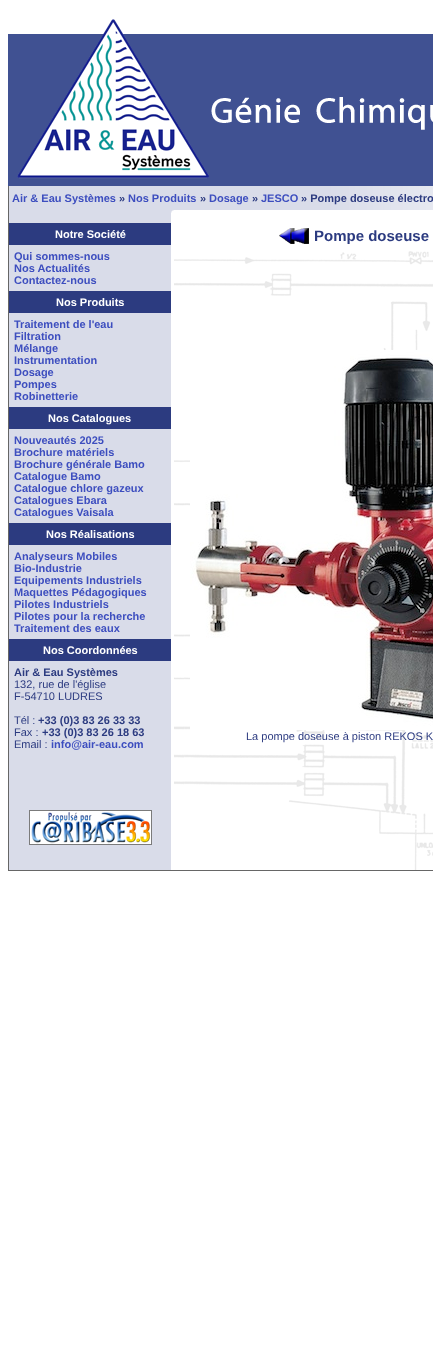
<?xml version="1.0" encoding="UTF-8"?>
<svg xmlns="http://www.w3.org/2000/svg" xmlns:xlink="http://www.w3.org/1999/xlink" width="433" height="1347">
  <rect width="100%" height="100%" fill="#ffffff" />
  <image x="8" y="19" width="425" height="167" xlink:href="image1.png" />
  <rect x="8" y="186" width="1" height="684" fill="#666666" />
  <image x="9" y="186" width="424" height="24" xlink:href="image2.png" />
  <image x="9" y="210" width="165" height="3" xlink:href="image3.png" />
  <rect x="9" y="213" width="162" height="657" fill="#d9dce9" />
  <rect x="9" y="223" width="162" height="22" fill="#2c3b80" />
  <rect x="9" y="291" width="162" height="22" fill="#2c3b80" />
  <rect x="9" y="407" width="162" height="22" fill="#2c3b80" />
  <rect x="9" y="523" width="162" height="22" fill="#2c3b80" />
  <rect x="9" y="639" width="162" height="22" fill="#2c3b80" />
  <image x="29" y="810" width="123" height="35" xlink:href="image4.png" />
  <image x="174" y="251" width="259" height="619" xlink:href="image5.png" />
  <image x="279" y="228" width="30" height="16" xlink:href="image6.png" />
  <image x="190" y="350" width="243" height="380" xlink:href="image7.png" />
  <rect x="8" y="870" width="425" height="1" fill="#666666" />
  <text x="12" y="202" style="font-family: Liberation Sans; font-size: 11px; font-weight: bold; fill: #3d4ebf">Air &amp; Eau Systèmes</text>
  <text x="119" y="202" style="font-family: Liberation Sans; font-size: 11px; font-weight: bold; fill: #2c3b80">»</text>
  <text x="128" y="202" style="font-family: Liberation Sans; font-size: 11px; font-weight: bold; fill: #3d4ebf">Nos Produits</text>
  <text x="200" y="202" style="font-family: Liberation Sans; font-size: 11px; font-weight: bold; fill: #2c3b80">»</text>
  <text x="209" y="202" style="font-family: Liberation Sans; font-size: 11px; font-weight: bold; fill: #3d4ebf">Dosage</text>
  <text x="252" y="202" style="font-family: Liberation Sans; font-size: 11px; font-weight: bold; fill: #2c3b80">»</text>
  <text x="261" y="202" style="font-family: Liberation Sans; font-size: 11px; font-weight: bold; fill: #3d4ebf">JESCO</text>
  <text x="301" y="202" style="font-family: Liberation Sans; font-size: 11px; font-weight: bold; fill: #2c3b80">» Pompe doseuse électro</text>
  <text x="55" y="238" style="font-family: Liberation Sans; font-size: 11px; font-weight: bold; fill: #ffffff">Notre Société</text>
  <text x="14" y="260" style="font-family: Liberation Sans; font-size: 11px; font-weight: bold; fill: #3d4ebf">Qui sommes-nous</text>
  <text x="14" y="272" style="font-family: Liberation Sans; font-size: 11px; font-weight: bold; fill: #3d4ebf">Nos Actualités</text>
  <text x="14" y="284" style="font-family: Liberation Sans; font-size: 11px; font-weight: bold; fill: #3d4ebf">Contactez-nous</text>
  <text x="56" y="306" style="font-family: Liberation Sans; font-size: 11px; font-weight: bold; fill: #ffffff">Nos Produits</text>
  <text x="14" y="328" style="font-family: Liberation Sans; font-size: 11px; font-weight: bold; fill: #3d4ebf">Traitement de l'eau</text>
  <text x="14" y="340" style="font-family: Liberation Sans; font-size: 11px; font-weight: bold; fill: #3d4ebf">Filtration</text>
  <text x="14" y="352" style="font-family: Liberation Sans; font-size: 11px; font-weight: bold; fill: #3d4ebf">Mélange</text>
  <text x="14" y="364" style="font-family: Liberation Sans; font-size: 11px; font-weight: bold; fill: #3d4ebf">Instrumentation</text>
  <text x="14" y="376" style="font-family: Liberation Sans; font-size: 11px; font-weight: bold; fill: #3d4ebf">Dosage</text>
  <text x="14" y="388" style="font-family: Liberation Sans; font-size: 11px; font-weight: bold; fill: #3d4ebf">Pompes</text>
  <text x="14" y="400" style="font-family: Liberation Sans; font-size: 11px; font-weight: bold; fill: #3d4ebf">Robinetterie</text>
  <text x="48" y="422" style="font-family: Liberation Sans; font-size: 11px; font-weight: bold; fill: #ffffff">Nos Catalogues</text>
  <text x="14" y="444" style="font-family: Liberation Sans; font-size: 11px; font-weight: bold; fill: #3d4ebf">Nouveautés 2025</text>
  <text x="14" y="456" style="font-family: Liberation Sans; font-size: 11px; font-weight: bold; fill: #3d4ebf">Brochure matériels</text>
  <text x="14" y="468" style="font-family: Liberation Sans; font-size: 11px; font-weight: bold; fill: #3d4ebf">Brochure générale Bamo</text>
  <text x="14" y="480" style="font-family: Liberation Sans; font-size: 11px; font-weight: bold; fill: #3d4ebf">Catalogue Bamo</text>
  <text x="14" y="492" style="font-family: Liberation Sans; font-size: 11px; font-weight: bold; fill: #3d4ebf">Catalogue chlore gazeux</text>
  <text x="14" y="504" style="font-family: Liberation Sans; font-size: 11px; font-weight: bold; fill: #3d4ebf">Catalogues Ebara</text>
  <text x="14" y="516" style="font-family: Liberation Sans; font-size: 11px; font-weight: bold; fill: #3d4ebf">Catalogues Vaisala</text>
  <text x="46" y="538" style="font-family: Liberation Sans; font-size: 11px; font-weight: bold; fill: #ffffff">Nos Réalisations</text>
  <text x="14" y="560" style="font-family: Liberation Sans; font-size: 11px; font-weight: bold; fill: #3d4ebf">Analyseurs Mobiles</text>
  <text x="14" y="572" style="font-family: Liberation Sans; font-size: 11px; font-weight: bold; fill: #3d4ebf">Bio-Industrie</text>
  <text x="14" y="584" style="font-family: Liberation Sans; font-size: 11px; font-weight: bold; fill: #3d4ebf">Equipements Industriels</text>
  <text x="14" y="596" style="font-family: Liberation Sans; font-size: 11px; font-weight: bold; fill: #3d4ebf">Maquettes Pédagogiques</text>
  <text x="14" y="608" style="font-family: Liberation Sans; font-size: 11px; font-weight: bold; fill: #3d4ebf">Pilotes Industriels</text>
  <text x="14" y="620" style="font-family: Liberation Sans; font-size: 11px; font-weight: bold; fill: #3d4ebf">Pilotes pour la recherche</text>
  <text x="14" y="632" style="font-family: Liberation Sans; font-size: 11px; font-weight: bold; fill: #3d4ebf">Traitement des eaux</text>
  <text x="43" y="654" style="font-family: Liberation Sans; font-size: 11px; font-weight: bold; fill: #ffffff">Nos Coordonnées</text>
  <text x="14" y="676" style="font-family: Liberation Sans; font-size: 11px; font-weight: bold; fill: #2c3b80">Air &amp; Eau Systèmes</text>
  <text x="14" y="688" style="font-family: Liberation Sans; font-size: 11px; fill: #2c3b80">132, rue de l'église</text>
  <text x="14" y="700" style="font-family: Liberation Sans; font-size: 11px; fill: #2c3b80">F-54710 LUDRES</text>
  <text x="14" y="724" style="font-family: Liberation Sans; font-size: 11px; fill: #2c3b80">Tél :</text>
  <text x="38" y="724" style="font-family: Liberation Sans; font-size: 11px; font-weight: bold; fill: #2c3b80">+33 (0)3 83 26 33 33</text>
  <text x="14" y="736" style="font-family: Liberation Sans; font-size: 11px; fill: #2c3b80">Fax :</text>
  <text x="42" y="736" style="font-family: Liberation Sans; font-size: 11px; font-weight: bold; fill: #2c3b80">+33 (0)3 83 26 18 63</text>
  <text x="14" y="748" style="font-family: Liberation Sans; font-size: 11px; fill: #2c3b80">Email :</text>
  <text x="51" y="748" style="font-family: Liberation Sans; font-size: 11px; font-weight: bold; fill: #3d4ebf">info@air-eau.com</text>
  <text x="314" y="241" style="font-family: Liberation Sans; font-size: 15px; font-weight: bold; fill: #2c3b80">Pompe doseuse</text>
  <text x="246" y="740" style="font-family: Liberation Sans; font-size: 11px; fill: #2c3b80">La pompe doseuse à piston REKOS K</text>
</svg>
